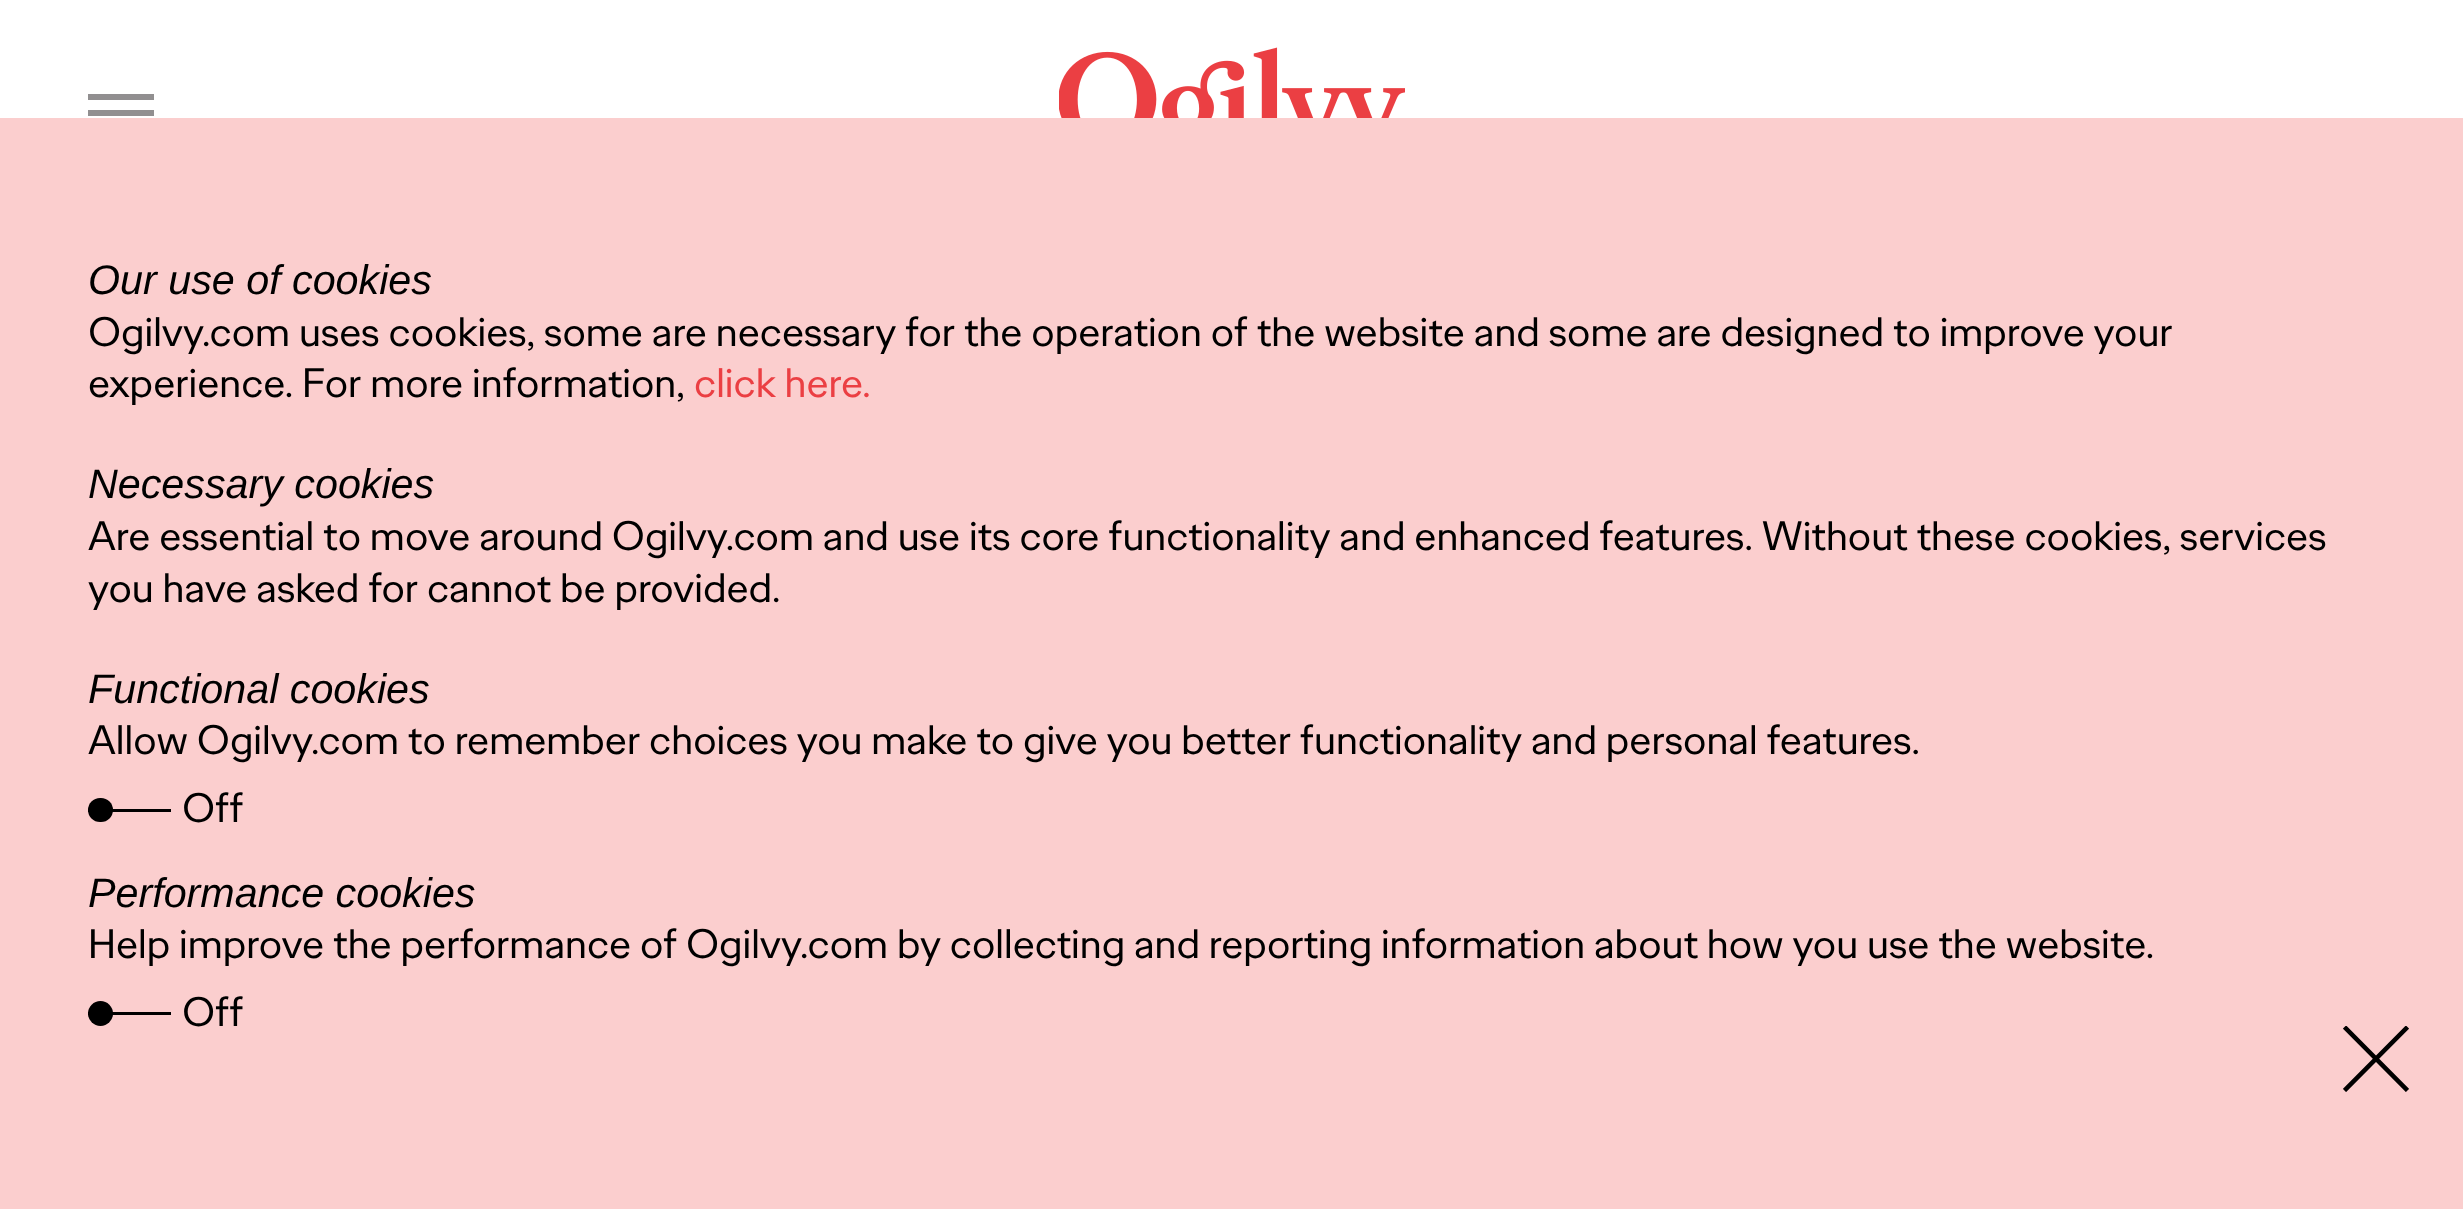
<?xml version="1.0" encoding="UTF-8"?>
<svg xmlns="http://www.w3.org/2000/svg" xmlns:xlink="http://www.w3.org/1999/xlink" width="2463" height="1209">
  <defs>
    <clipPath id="clip1"><rect x="2343" y="1026" width="66" height="66" /></clipPath>
  </defs>
  <rect width="100%" height="100%" fill="#ffffff" />
  <rect x="88" y="94" width="66" height="6" fill="#918f90" />
  <rect x="88" y="110" width="66" height="6" fill="#918f90" />
  <image x="1059" y="47" width="346" height="71" xlink:href="image1.png" />
  <rect y="118" width="2463" height="1091" fill="#fbcece" />
  <rect x="88" y="809" width="83" height="3" fill="#000000" />
  <rect x="88" y="798" width="25" height="24" rx="12" fill="#000000" />
  <rect x="88" y="1012" width="83" height="3" fill="#000000" />
  <circle cx="100.5" cy="1013.5" r="12.5" fill="#000000" />
  <g clip-path="url(#clip1)">
    <path d="M 2344.5 1027 l 63 63.5 m 0 -63.5 l -63 63.5" fill="none" stroke="#000000" stroke-width="4.5" />
  </g>
  <text x="88" y="294" style="font-family: Liberation Sans; font-size: 41.25px; font-style: italic; fill: #000000">Our use of cookies</text>
  <text x="88" y="346" style="font-family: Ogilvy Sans; font-size: 41.25px; fill: #000000">Ogilvy.com uses cookies, some are necessary for the operation of the website and some are designed to improve your</text>
  <text x="88" y="397" style="font-family: Ogilvy Sans; font-size: 41.25px; fill: #000000">experience. For more information,</text>
  <text x="694" y="397" style="font-family: Ogilvy Sans; font-size: 41.25px; fill: #eb3f43">click here.</text>
  <text x="88" y="498" style="font-family: Liberation Sans; font-size: 41.25px; font-style: italic; fill: #000000">Necessary cookies</text>
  <text x="88" y="550" style="font-family: Ogilvy Sans; font-size: 41.25px; fill: #000000">Are essential to move around Ogilvy.com and use its core functionality and enhanced features. Without these cookies, services</text>
  <text x="88" y="602" style="font-family: Ogilvy Sans; font-size: 41.25px; fill: #000000">you have asked for cannot be provided.</text>
  <text x="88" y="703" style="font-family: Liberation Sans; font-size: 41.25px; font-style: italic; fill: #000000">Functional cookies</text>
  <text x="88" y="754" style="font-family: Ogilvy Sans; font-size: 41.25px; fill: #000000">Allow Ogilvy.com to remember choices you make to give you better functionality and personal features.</text>
  <text x="182" y="822" style="font-family: Ogilvy Sans; font-size: 41.25px; fill: #000000">Off</text>
  <text x="88" y="907" style="font-family: Liberation Sans; font-size: 41.25px; font-style: italic; fill: #000000">Performance cookies</text>
  <text x="88" y="958" style="font-family: Ogilvy Sans; font-size: 41.25px; fill: #000000">Help improve the performance of Ogilvy.com by collecting and reporting information about how you use the website.</text>
  <text x="182" y="1026" style="font-family: Ogilvy Sans; font-size: 41.25px; fill: #000000">Off</text>
</svg>
